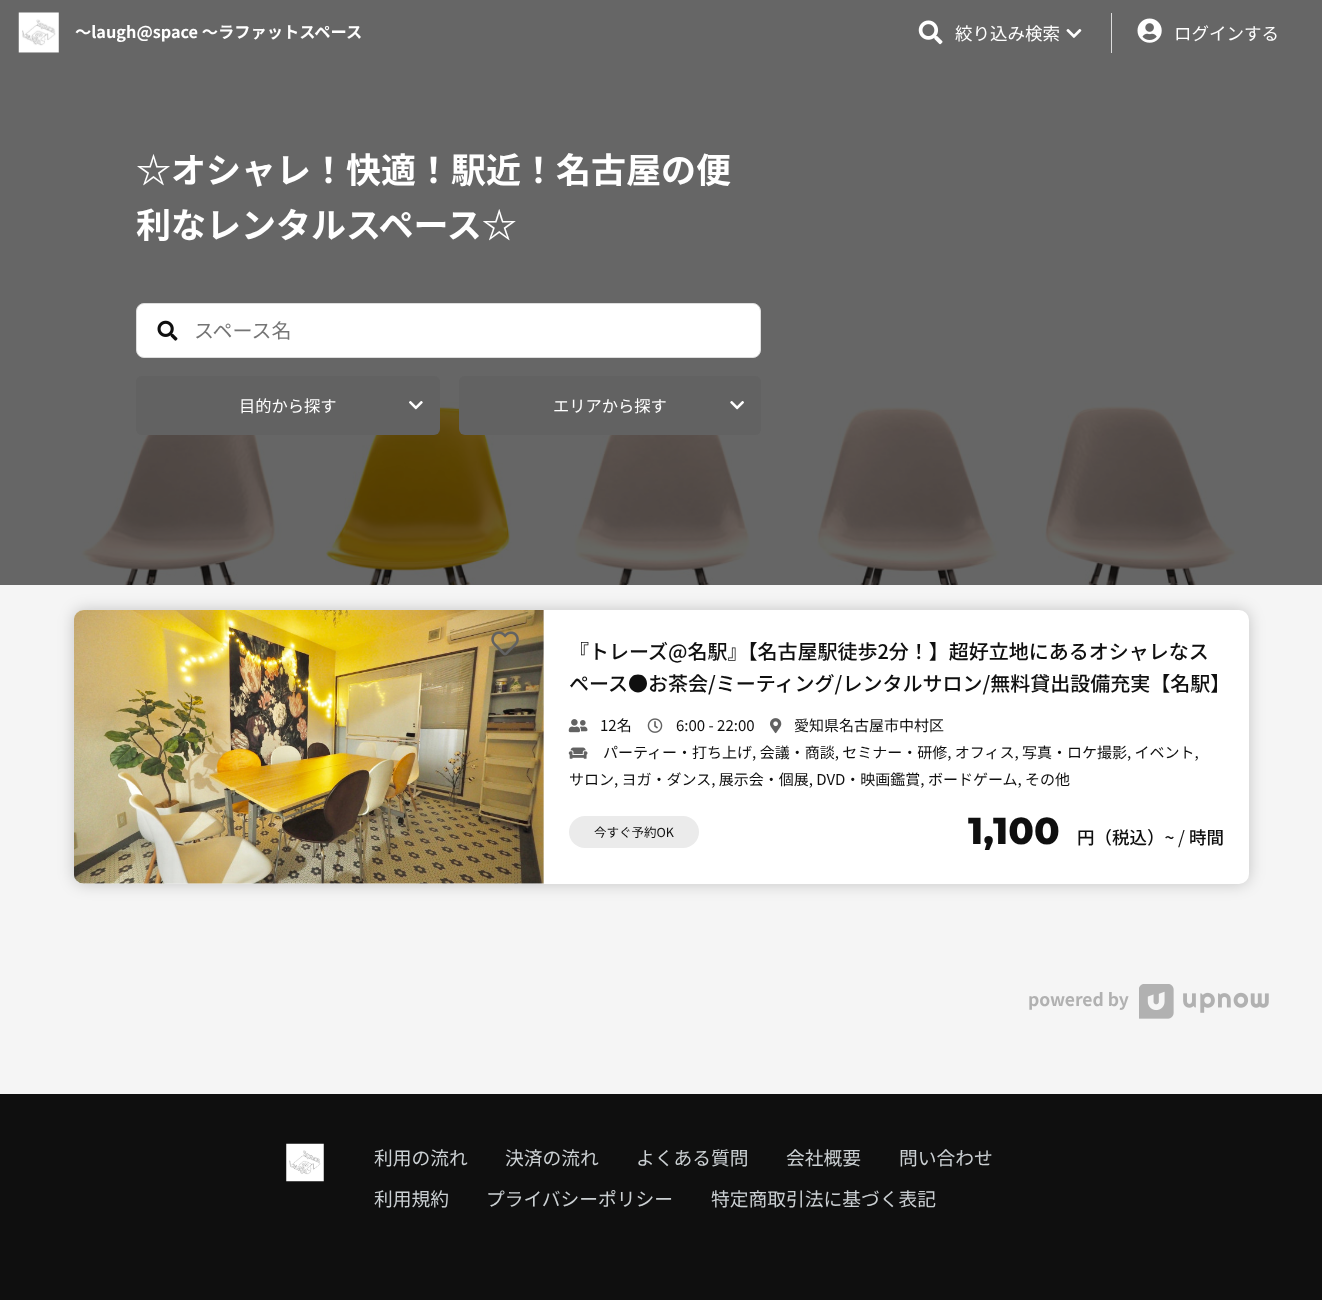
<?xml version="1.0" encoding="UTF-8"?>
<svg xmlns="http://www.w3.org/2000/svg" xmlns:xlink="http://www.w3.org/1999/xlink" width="1322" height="1300">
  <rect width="100%" height="100%" fill="#f5f5f5" />
  <image x="0" y="0" width="1322" height="585" xlink:href="image5.png" />
  <image x="18" y="12" width="41" height="41" xlink:href="image1.png" />
  <image x="918" y="20" width="25" height="25" xlink:href="image2.png" />
  <image x="1066" y="29" width="16" height="9" xlink:href="image3.png" />
  <rect x="1111" y="13" width="1" height="40" fill="#dddddd" />
  <image x="1137" y="18" width="25" height="25" xlink:href="image4.png" />
  <rect x="136.5" y="303.5" width="624" height="54" rx="7.5" fill="#ffffff" stroke="#dddddd" />
  <image x="157" y="320" width="21" height="21" xlink:href="image6.png" />
  <rect x="136" y="376" width="304" height="59" rx="6" fill="#626262" />
  <image x="409" y="401" width="14" height="9" xlink:href="image7.png" />
  <rect x="459" y="376" width="302" height="59" rx="6" fill="#626262" />
  <image x="730" y="401" width="14" height="9" xlink:href="image8.png" />
  <rect x="74" y="610" width="1175" height="274" rx="10" fill="#000000" fill-opacity="0.2" filter="blur(8px)" />
  <rect x="74" y="610" width="1175" height="274" rx="10" fill="#ffffff" />
  <path d="M 84 610 h 460 v 274 h -460 c -5.5 0 -10 -4.5 -10 -10 v -254 c 0 -5.5 4.5 -10 10 -10 z" fill="#ebebeb" />
  <image x="74" y="610" width="470" height="274" xlink:href="image9.png" />
  <image x="491" y="631" width="28" height="25" xlink:href="image10.png" />
  <image x="568" y="719" width="20" height="14" xlink:href="image11.png" />
  <image x="647" y="718" width="16" height="15" xlink:href="image12.png" />
  <image x="770" y="718" width="12" height="16" xlink:href="image13.png" />
  <image x="568" y="747" width="20" height="12" xlink:href="image14.png" />
  <rect x="569" y="816" width="130" height="32" rx="16" fill="#ebebeb" />
  <image x="1139" y="984" width="130" height="35" xlink:href="image15.png" />
  <rect y="1094" width="1322" height="206" fill="#0f0f0f" />
  <image x="286" y="1143" width="38" height="39" xlink:href="image16.png" />
  <text x="75" y="38" style="font-family: Noto Sans JP; font-size: 16.25px; font-weight: bold; fill: #ffffff">〜laugh@space 〜ラファットスペース</text>
  <text x="955" y="40" style="font-family: Noto Sans JP; font-size: 17.5px; fill: #ffffff">絞り込み検索</text>
  <text x="1174" y="40" style="font-family: Noto Sans JP; font-size: 17.5px; fill: #ffffff">ログインする</text>
  <text x="136" y="183" style="font-family: Noto Sans JP; font-size: 35px; font-weight: bold; fill: #ffffff">☆オシャレ！快適！駅近！名古屋の便</text>
  <text x="136" y="238" style="font-family: Noto Sans JP; font-size: 35px; font-weight: bold; fill: #ffffff">利なレンタルスペース☆</text>
  <text x="194" y="338" style="font-family: Noto Sans JP; font-size: 20px; fill: #757575">スペース名</text>
  <text x="239" y="412" style="font-family: Noto Sans JP; font-size: 16.25px; fill: #ffffff">目的から探す</text>
  <text x="553" y="412" style="font-family: Noto Sans JP; font-size: 16.25px; fill: #ffffff">エリアから探す</text>
  <text x="569" y="659" style="font-family: Noto Sans JP; font-size: 20px; font-weight: 500; fill: #0f0f0f">『トレーズ@名駅』【名古屋駅徒歩2分！】超好立地にあるオシャレなス</text>
  <text x="569" y="691" style="font-family: Noto Sans JP; font-size: 20px; font-weight: 500; fill: #0f0f0f">ペース●お茶会/ミーティング/レンタルサロン/無料貸出設備充実【名駅】</text>
  <text x="600" y="731" style="font-family: Noto Sans JP; font-size: 15px; fill: #0f0f0f">12名</text>
  <text x="676" y="731" style="font-family: Noto Sans JP; font-size: 15px; fill: #0f0f0f">6:00 - 22:00</text>
  <text x="794" y="731" style="font-family: Noto Sans JP; font-size: 15px; fill: #0f0f0f">愛知県名古屋市中村区</text>
  <text x="603" y="758" style="font-family: Noto Sans JP; font-size: 15px; fill: #0f0f0f">パーティー・打ち上げ, 会議・商談, セミナー・研修, オフィス, 写真・ロケ撮影, イベント,</text>
  <text x="569" y="785" style="font-family: Noto Sans JP; font-size: 15px; fill: #0f0f0f">サロン, ヨガ・ダンス, 展示会・個展, DVD・映画鑑賞, ボードゲーム, その他</text>
  <text x="594" y="837" style="font-family: Noto Sans JP; font-size: 12.5px; fill: #0f0f0f">今すぐ予約OK</text>
  <text x="968" y="844" style="font-family: Montserrat; font-size: 37.5px; font-weight: 800; fill: #0f0f0f">1,100</text>
  <text x="1077" y="844" style="font-family: Noto Sans JP; font-size: 17.5px; font-weight: 500; fill: #0f0f0f">円（税込）~</text>
  <text x="1178" y="844" style="font-family: Noto Sans JP; font-size: 17.5px; fill: #0f0f0f">/</text>
  <text x="1189" y="844" style="font-family: Noto Sans JP; font-size: 17.5px; font-weight: 500; fill: #0f0f0f">時間</text>
  <text x="1028" y="1006" style="font-family: Noto Sans JP; font-size: 17.5px; font-weight: bold; fill: #b1b1b1">powered by</text>
  <text x="374" y="1165" style="font-family: Noto Sans JP; font-size: 18.75px; fill: #cbd0d3">利用の流れ</text>
  <text x="505" y="1165" style="font-family: Noto Sans JP; font-size: 18.75px; fill: #cbd0d3">決済の流れ</text>
  <text x="636" y="1165" style="font-family: Noto Sans JP; font-size: 18.75px; fill: #cbd0d3">よくある質問</text>
  <text x="786" y="1165" style="font-family: Noto Sans JP; font-size: 18.75px; fill: #cbd0d3">会社概要</text>
  <text x="899" y="1165" style="font-family: Noto Sans JP; font-size: 18.75px; fill: #cbd0d3">問い合わせ</text>
  <text x="374" y="1206" style="font-family: Noto Sans JP; font-size: 18.75px; fill: #cbd0d3">利用規約</text>
  <text x="486" y="1206" style="font-family: Noto Sans JP; font-size: 18.75px; fill: #cbd0d3">プライバシーポリシー</text>
  <text x="711" y="1206" style="font-family: Noto Sans JP; font-size: 18.75px; fill: #cbd0d3">特定商取引法に基づく表記</text>
</svg>
